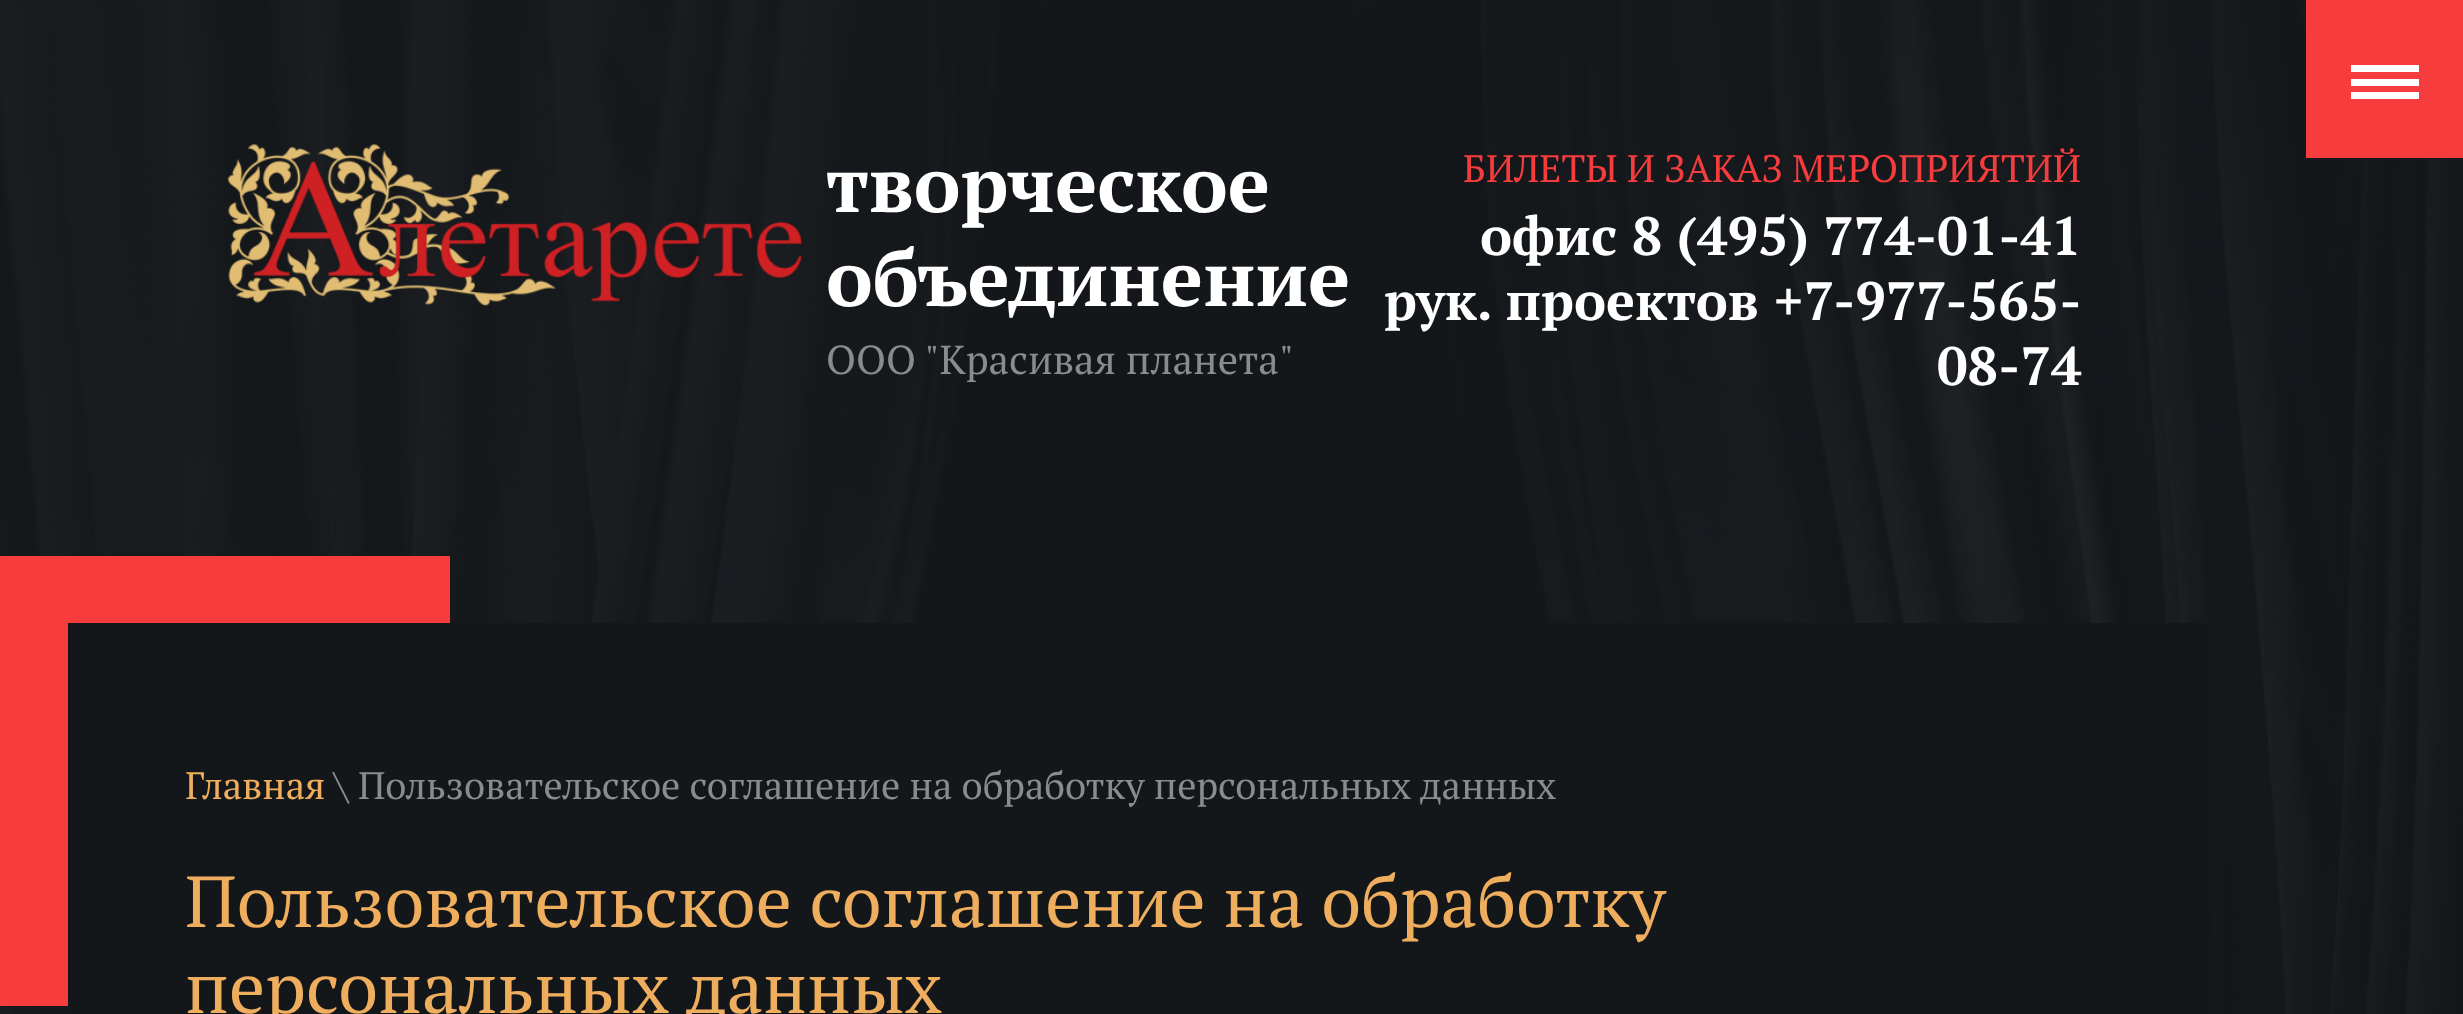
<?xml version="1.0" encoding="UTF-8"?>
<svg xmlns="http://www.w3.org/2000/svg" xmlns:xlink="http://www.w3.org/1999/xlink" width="2463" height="1014">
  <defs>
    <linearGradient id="g1" gradientUnits="userSpaceOnUse" x1="68" y1="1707" x2="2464" y2="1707"><stop offset="0" stop-color="#14171a" /><stop offset="0.9" stop-color="#14171a" /><stop offset="0.9" stop-color="#14171a" stop-opacity="0" /><stop offset="1" stop-color="#1c2025" stop-opacity="0" /></linearGradient>
  </defs>
  <rect width="100%" height="100%" fill="#ffffff" />
  <image x="0" y="0" width="2463" height="1014" xlink:href="image1.png" />
  <rect x="2306" width="157" height="158" fill="#f73c3d" />
  <rect x="2351" y="65" width="68" height="7" fill="#ffffff" />
  <rect x="2351" y="79" width="68" height="7" fill="#ffffff" />
  <rect x="2351" y="92" width="68" height="7" fill="#ffffff" />
  <image x="227" y="144" width="576" height="162" xlink:href="image2.png" />
  <rect y="556" width="450" height="450" fill="#f73c3d" />
  <rect x="68" y="623" width="2143" height="391" fill="url(#g1)" />
  <text x="826" y="212" style="font-family: PT Serif; font-size: 78.75px; font-weight: bold; fill: #ffffff">творческое</text>
  <text x="826" y="306" style="font-family: PT Serif; font-size: 78.75px; font-weight: bold; fill: #ffffff">объединение</text>
  <text x="826" y="374" style="font-family: PT Serif; font-size: 40.5px; fill: #8a8b8d">ООО "Красивая планета"</text>
  <text x="1463" y="182" style="font-family: PT Serif; font-size: 38.25px; fill: #f73c3d">БИЛЕТЫ И ЗАКАЗ МЕРОПРИЯТИЙ</text>
  <text x="1480" y="255" style="font-family: PT Serif; font-size: 54px; font-weight: bold; fill: #ffffff">офис 8 (495) 774-01-41</text>
  <text x="1384" y="320" style="font-family: PT Serif; font-size: 54px; font-weight: bold; fill: #ffffff">рук. проектов +7-977-565-</text>
  <text x="1937" y="385" style="font-family: PT Serif; font-size: 54px; font-weight: bold; fill: #ffffff">08-74</text>
  <text x="185" y="799" style="font-family: PT Serif; font-size: 38.25px; fill: #efad5e">Главная</text>
  <text x="334" y="799" style="font-family: PT Serif; font-size: 38.25px; fill: #8a8b8d">\ Пользовательское соглашение на обработку персональных данных</text>
  <text x="185" y="927" style="font-family: PT Serif; font-size: 72px; fill: #efad5e">Пользовательское соглашение на обработку</text>
  <text x="185" y="1013" style="font-family: PT Serif; font-size: 72px; fill: #efad5e">персональных данных</text>
</svg>
